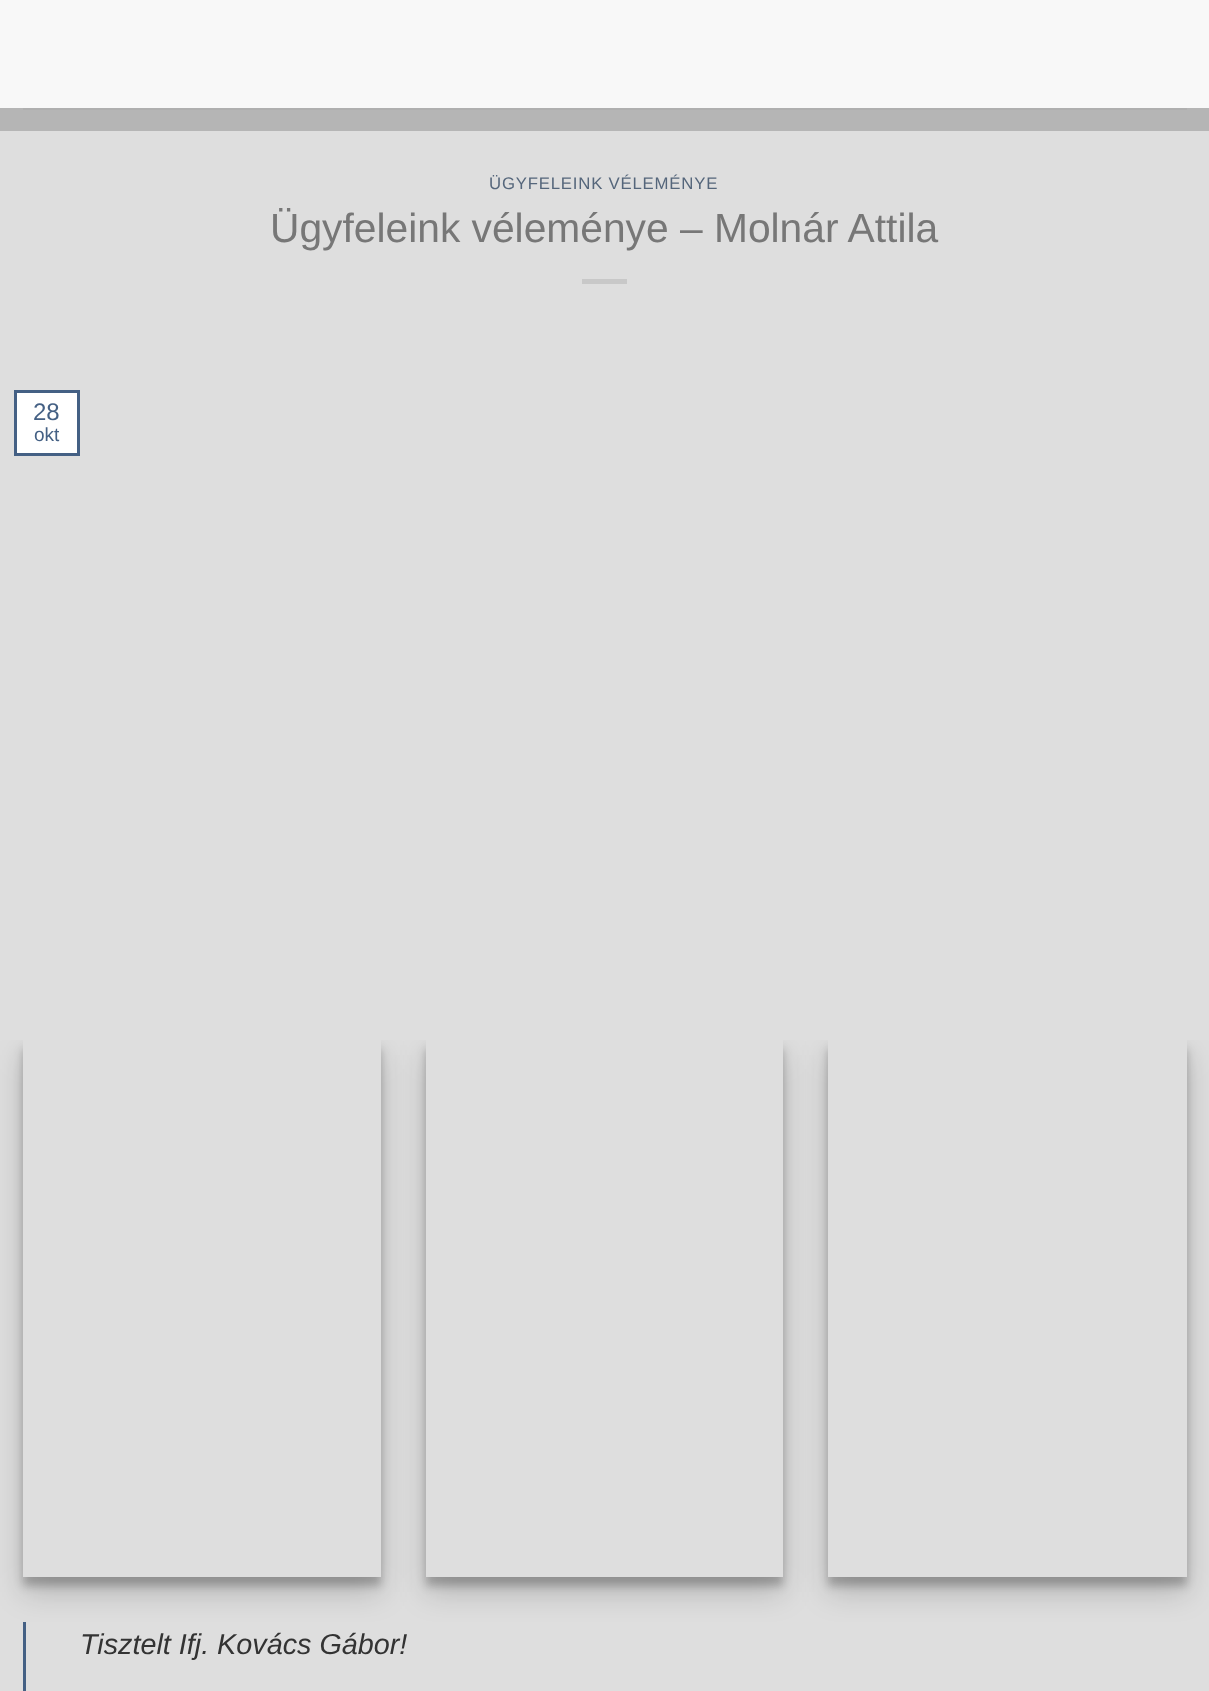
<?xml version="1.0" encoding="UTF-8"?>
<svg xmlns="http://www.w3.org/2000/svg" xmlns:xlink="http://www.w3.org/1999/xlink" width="1209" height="1691">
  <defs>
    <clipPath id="clip1"><path d="M 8 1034 h 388 v 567 h -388 z m 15 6 h 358 v 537 h -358 z" clip-rule="evenodd" /></clipPath>
    <clipPath id="clip2"><rect x="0" y="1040" width="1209" height="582" /></clipPath>
    <clipPath id="clip3"><path d="M 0 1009 h 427 v 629 h -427 z m 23 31 h 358 v 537 h -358 z" clip-rule="evenodd" /></clipPath>
    <clipPath id="clip4"><path d="M 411 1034 h 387 v 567 h -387 z m 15 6 h 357 v 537 h -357 z" clip-rule="evenodd" /></clipPath>
    <clipPath id="clip5"><path d="M 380 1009 h 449 v 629 h -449 z m 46 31 h 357 v 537 h -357 z" clip-rule="evenodd" /></clipPath>
    <clipPath id="clip6"><path d="M 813 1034 h 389 v 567 h -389 z m 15 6 h 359 v 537 h -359 z" clip-rule="evenodd" /></clipPath>
    <clipPath id="clip7"><path d="M 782 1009 h 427 v 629 h -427 z m 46 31 h 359 v 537 h -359 z" clip-rule="evenodd" /></clipPath>
  </defs>
  <rect width="100%" height="100%" fill="#b5b5b5" />
  <rect width="1209" height="108" fill="#f8f8f8" />
  <rect x="23" y="108" width="1164" height="2" fill="#afafaf" />
  <rect y="131" width="1209" height="1560" fill="#dedede" />
  <rect x="582" y="279" width="45" height="5" fill="#c8c8c8" />
  <rect x="15.5" y="391.5" width="63" height="63" fill="#ffffff" stroke="#446084" stroke-width="3" />
  <g clip-path="url(#clip1)">
    <rect x="23" y="1049" width="358" height="537" fill="#000000" fill-opacity="0.22" filter="blur(4.5px)" />
  </g>
  <g clip-path="url(#clip2)">
    <g clip-path="url(#clip3)">
      <rect x="23" y="1055" width="358" height="537" fill="#000000" fill-opacity="0.19" filter="blur(15px)" />
    </g>
  </g>
  <g clip-path="url(#clip4)">
    <rect x="426" y="1049" width="357" height="537" fill="#000000" fill-opacity="0.22" filter="blur(4.5px)" />
  </g>
  <g clip-path="url(#clip2)">
    <g clip-path="url(#clip5)">
      <rect x="426" y="1055" width="357" height="537" fill="#000000" fill-opacity="0.19" filter="blur(15px)" />
    </g>
  </g>
  <g clip-path="url(#clip6)">
    <rect x="828" y="1049" width="359" height="537" fill="#000000" fill-opacity="0.22" filter="blur(4.5px)" />
  </g>
  <g clip-path="url(#clip2)">
    <g clip-path="url(#clip7)">
      <rect x="828" y="1055" width="359" height="537" fill="#000000" fill-opacity="0.19" filter="blur(15px)" />
    </g>
  </g>
  <rect x="23" y="1622" width="3" height="69" fill="#446084" />
  <text x="489" y="189" style="font-family: Liberation Sans; font-size: 16.75px; letter-spacing: 0.8px; fill: #55667b">ÜGYFELEINK VÉLEMÉNYE</text>
  <text x="270" y="242" style="font-family: Liberation Sans; font-size: 40.75px; fill: #777777">Ügyfeleink véleménye – Molnár Attila</text>
  <text x="33" y="420" style="font-family: Liberation Sans; font-size: 24px; fill: #446084">28</text>
  <text x="34" y="441" style="font-family: Liberation Sans; font-size: 19px; fill: #446084">okt</text>
  <text x="80" y="1654" style="font-family: Liberation Sans; font-size: 28.75px; font-style: italic; fill: #333333">Tisztelt Ifj. Kovács Gábor!</text>
</svg>
